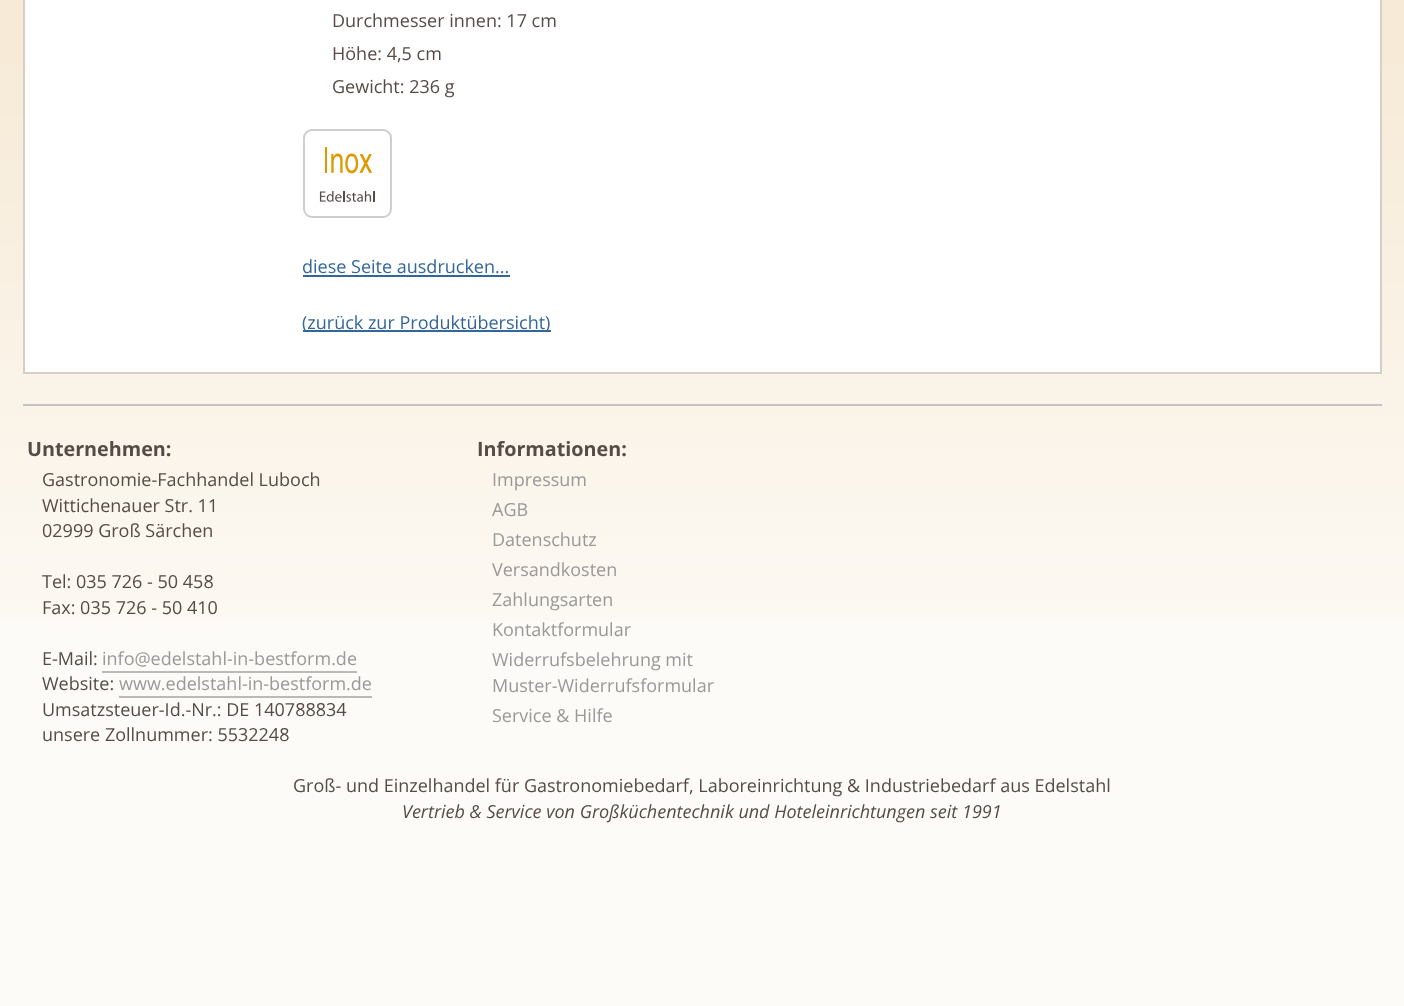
<?xml version="1.0" encoding="UTF-8"?>
<svg xmlns="http://www.w3.org/2000/svg" xmlns:xlink="http://www.w3.org/1999/xlink" width="1404" height="1006">
  <rect width="100%" height="100%" fill="#fdfbf7" />
  <image x="0" y="0" width="1404" height="621" xlink:href="image1.png" />
  <rect x="25" width="1355" height="372" fill="#ffffff" />
  <rect x="1380" width="2" height="374" fill="#d4d0c8" />
  <rect x="23" y="372" width="1359" height="2" fill="#d4d0c8" />
  <rect x="23" width="2" height="374" fill="#d4d0c8" />
  <rect x="304" y="130" width="87" height="87" rx="8" fill="none" stroke="#cecece" stroke-width="2" />
  <image x="319" y="147" width="56" height="55" xlink:href="image2.png" />
  <rect x="303" y="275" width="207" height="2" fill="#336699" />
  <rect x="303" y="330" width="248" height="2" fill="#336699" />
  <rect x="23" y="404" width="1359" height="2" fill="#c3c3c3" />
  <rect x="102" y="671" width="255" height="2" fill="#bababa" />
  <rect x="119" y="696" width="253" height="2" fill="#bababa" />
  <text x="332" y="27" style="font-family: Open Sans; font-size: 18px; fill: #564b47">Durchmesser innen: 17 cm</text>
  <text x="332" y="60" style="font-family: Open Sans; font-size: 18px; fill: #564b47">Höhe: 4,5 cm</text>
  <text x="332" y="93" style="font-family: Open Sans; font-size: 18px; fill: #564b47">Gewicht: 236 g</text>
  <text x="302" y="273" style="font-family: Open Sans; font-size: 18px; fill: #336699">diese Seite ausdrucken...</text>
  <text x="302" y="329" style="font-family: Open Sans; font-size: 18px; fill: #336699">(zurück zur Produktübersicht)</text>
  <text x="27" y="456" style="font-family: Open Sans; font-size: 19.75px; font-weight: bold; fill: #564b47">Unternehmen:</text>
  <text x="42" y="486" style="font-family: Open Sans; font-size: 18px; fill: #564b47">Gastronomie-Fachhandel Luboch</text>
  <text x="42" y="512" style="font-family: Open Sans; font-size: 18px; fill: #564b47">Wittichenauer Str. 11</text>
  <text x="42" y="537" style="font-family: Open Sans; font-size: 18px; fill: #564b47">02999 Groß Särchen</text>
  <text x="42" y="588" style="font-family: Open Sans; font-size: 18px; fill: #564b47">Tel: 035 726 - 50 458</text>
  <text x="42" y="614" style="font-family: Open Sans; font-size: 18px; fill: #564b47">Fax: 035 726 - 50 410</text>
  <text x="42" y="665" style="font-family: Open Sans; font-size: 18px; fill: #564b47">E-Mail:</text>
  <text x="102" y="665" style="font-family: Open Sans; font-size: 18px; fill: #999999">info@edelstahl-in-bestform.de</text>
  <text x="42" y="690" style="font-family: Open Sans; font-size: 18px; fill: #564b47">Website:</text>
  <text x="119" y="690" style="font-family: Open Sans; font-size: 18px; fill: #999999">www.edelstahl-in-bestform.de</text>
  <text x="42" y="716" style="font-family: Open Sans; font-size: 18px; fill: #564b47">Umsatzsteuer-Id.-Nr.: DE 140788834</text>
  <text x="42" y="741" style="font-family: Open Sans; font-size: 18px; fill: #564b47">unsere Zollnummer: 5532248</text>
  <text x="477" y="456" style="font-family: Open Sans; font-size: 19.75px; font-weight: bold; fill: #564b47">Informationen:</text>
  <text x="492" y="486" style="font-family: Open Sans; font-size: 18px; fill: #999999">Impressum</text>
  <text x="492" y="516" style="font-family: Open Sans; font-size: 18px; fill: #999999">AGB</text>
  <text x="492" y="546" style="font-family: Open Sans; font-size: 18px; fill: #999999">Datenschutz</text>
  <text x="492" y="576" style="font-family: Open Sans; font-size: 18px; fill: #999999">Versandkosten</text>
  <text x="492" y="606" style="font-family: Open Sans; font-size: 18px; fill: #999999">Zahlungsarten</text>
  <text x="492" y="636" style="font-family: Open Sans; font-size: 18px; fill: #999999">Kontaktformular</text>
  <text x="492" y="666" style="font-family: Open Sans; font-size: 18px; fill: #999999">Widerrufsbelehrung mit</text>
  <text x="492" y="692" style="font-family: Open Sans; font-size: 18px; fill: #999999">Muster-Widerrufsformular</text>
  <text x="492" y="722" style="font-family: Open Sans; font-size: 18px; fill: #999999">Service &amp; Hilfe</text>
  <text x="293" y="792" style="font-family: Open Sans; font-size: 18px; fill: #564b47">Groß- und Einzelhandel für Gastronomiebedarf, Laboreinrichtung &amp; Industriebedarf aus Edelstahl</text>
  <text x="402" y="818" style="font-family: Open Sans; font-size: 18px; font-style: italic; fill: #564b47">Vertrieb &amp; Service von Großküchentechnik und Hoteleinrichtungen seit 1991</text>
</svg>
